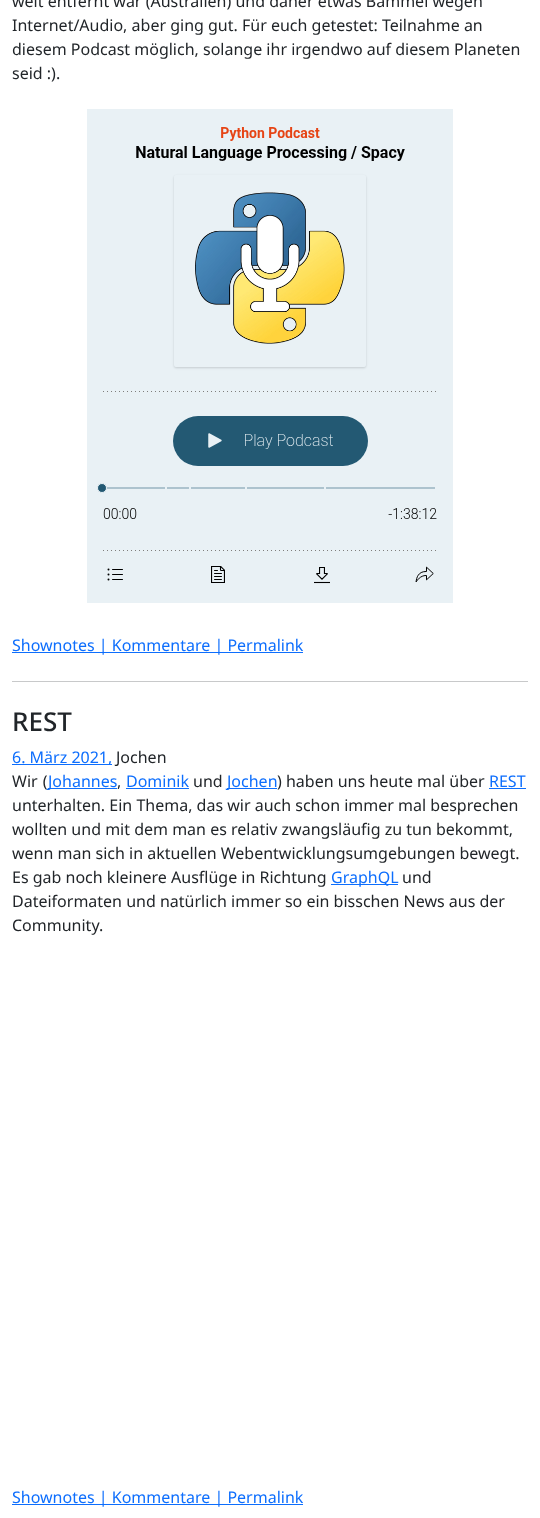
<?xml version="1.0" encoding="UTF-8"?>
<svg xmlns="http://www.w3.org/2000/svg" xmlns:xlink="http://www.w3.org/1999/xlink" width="540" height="1518">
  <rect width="100%" height="100%" fill="#ffffff" />
  <image x="87" y="109" width="366" height="494" xlink:href="image1.png" />
  <rect x="12" y="652" width="291" height="1" fill="#0d6efd" />
  <rect x="12" y="681" width="516" height="1" fill="#c8c9ca" />
  <rect x="12" y="764" width="100" height="1" fill="#0d6efd" />
  <rect x="48" y="788" width="69" height="1" fill="#0d6efd" />
  <rect x="126" y="788" width="63" height="1" fill="#0d6efd" />
  <rect x="227" y="788" width="50" height="1" fill="#0d6efd" />
  <rect x="489" y="788" width="37" height="1" fill="#0d6efd" />
  <rect x="331" y="884" width="67" height="1" fill="#0d6efd" />
  <rect x="12" y="1504" width="291" height="1" fill="#0d6efd" />
  <text x="12" y="7" style="font-family: Noto Sans; font-size: 16px; fill: #212529">weit entfernt war (Australien) und daher etwas Bammel wegen</text>
  <text x="12" y="31" style="font-family: Noto Sans; font-size: 16px; fill: #212529">Internet/Audio, aber ging gut. Für euch getestet: Teilnahme an</text>
  <text x="12" y="55" style="font-family: Noto Sans; font-size: 16px; fill: #212529">diesem Podcast möglich, solange ihr irgendwo auf diesem Planeten</text>
  <text x="12" y="79" style="font-family: Noto Sans; font-size: 16px; fill: #212529">seid :).</text>
  <text x="12" y="651" style="font-family: Noto Sans; font-size: 16px; fill: #0d6efd">Shownotes | Kommentare | Permalink</text>
  <text x="12" y="731" style="font-family: Noto Sans; font-size: 26px; font-weight: 500; fill: #212529">REST</text>
  <text x="12" y="763" style="font-family: Noto Sans; font-size: 16px; fill: #0d6efd">6. März 2021,</text>
  <text x="116" y="763" style="font-family: Noto Sans; font-size: 16px; fill: #212529">Jochen</text>
  <text x="12" y="787" word-spacing="1" style="font-family: Noto Sans; font-size: 16px; fill: #212529">Wir (</text>
  <text x="48" y="787" style="font-family: Noto Sans; font-size: 16px; fill: #0d6efd">Johannes</text>
  <text x="117" y="787" style="font-family: Noto Sans; font-size: 16px; fill: #212529">,</text>
  <text x="126" y="787" style="font-family: Noto Sans; font-size: 16px; fill: #0d6efd">Dominik</text>
  <text x="193" y="787" style="font-family: Noto Sans; font-size: 16px; fill: #212529">und</text>
  <text x="227" y="787" style="font-family: Noto Sans; font-size: 16px; fill: #0d6efd">Jochen</text>
  <text x="277" y="787" style="font-family: Noto Sans; font-size: 16px; fill: #212529">) haben uns heute mal über</text>
  <text x="489" y="787" style="font-family: Noto Sans; font-size: 16px; fill: #0d6efd">REST</text>
  <text x="12" y="811" style="font-family: Noto Sans; font-size: 16px; fill: #212529">unterhalten. Ein Thema, das wir auch schon immer mal besprechen</text>
  <text x="12" y="835" style="font-family: Noto Sans; font-size: 16px; fill: #212529">wollten und mit dem man es relativ zwangsläufig zu tun bekommt,</text>
  <text x="12" y="859" style="font-family: Noto Sans; font-size: 16px; fill: #212529">wenn man sich in aktuellen Webentwicklungsumgebungen bewegt.</text>
  <text x="12" y="883" style="font-family: Noto Sans; font-size: 16px; fill: #212529">Es gab noch kleinere Ausflüge in Richtung</text>
  <text x="331" y="883" style="font-family: Noto Sans; font-size: 16px; fill: #0d6efd">GraphQL</text>
  <text x="402" y="883" style="font-family: Noto Sans; font-size: 16px; fill: #212529">und</text>
  <text x="12" y="907" style="font-family: Noto Sans; font-size: 16px; fill: #212529">Dateiformaten und natürlich immer so ein bisschen News aus der</text>
  <text x="12" y="931" style="font-family: Noto Sans; font-size: 16px; fill: #212529">Community.</text>
  <text x="12" y="1503" style="font-family: Noto Sans; font-size: 16px; fill: #0d6efd">Shownotes | Kommentare | Permalink</text>
</svg>
